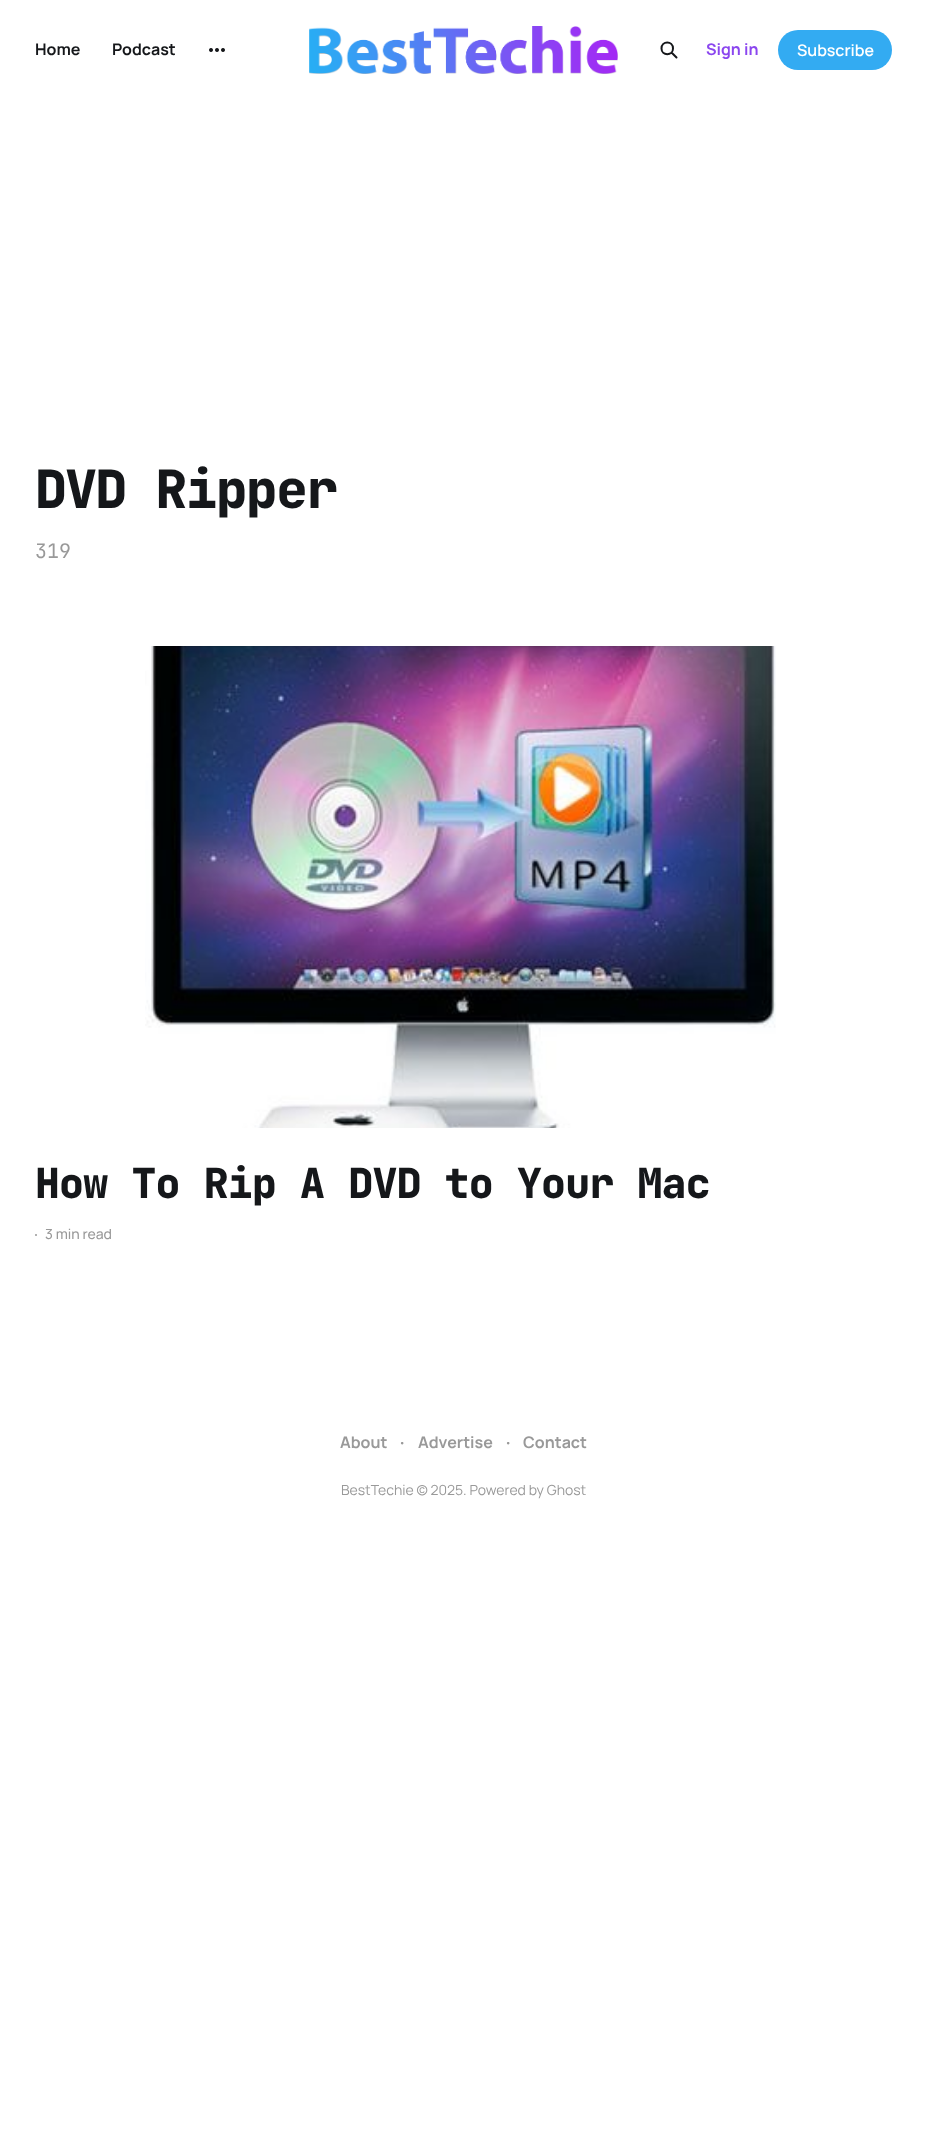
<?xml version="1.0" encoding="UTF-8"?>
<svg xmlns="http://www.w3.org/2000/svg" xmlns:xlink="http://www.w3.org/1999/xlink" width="927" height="2143">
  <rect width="100%" height="100%" fill="#ffffff" />
  <image x="209" y="48" width="16" height="4" xlink:href="image1.png" />
  <image x="309" y="26" width="309" height="48" xlink:href="image2.png" />
  <path d="M 676.5 57.5 l -5 -5 z m -3.5 -9 c 0 7.5 -11.5 7.5 -11.5 0 c 0 -8 11.5 -8 11.5 0 z" fill="none" stroke="#15171a" stroke-width="2" stroke-linecap="round" stroke-linejoin="round" />
  <rect x="778" y="30" width="114" height="40" rx="20" fill="#33abf2" />
  <image x="145" y="646" width="631" height="482" xlink:href="image3.png" />
  <circle cx="36" cy="1235" r="1" fill="#999999" />
  <text x="35" y="55" style="font-family: Manrope; font-size: 16px; font-weight: bold; fill: #15171a">Home</text>
  <text x="112" y="55" style="font-family: Manrope; font-size: 16px; font-weight: bold; fill: #15171a">Podcast</text>
  <text x="706" y="55" style="font-family: Manrope; font-size: 16px; font-weight: bold; fill: #8b46ef">Sign in</text>
  <text x="797" y="56" style="font-family: Manrope; font-size: 16px; font-weight: 600; fill: #ffffff">Subscribe</text>
  <text x="35" y="508" style="font-family: JetBrains Mono; font-size: 52.75px; font-weight: 800; letter-spacing: -1.5px; fill: #15171a">DVD Ripper</text>
  <text x="35" y="558" style="font-family: JetBrains Mono; font-size: 20px; fill: #999999">319</text>
  <text x="35" y="1198" style="font-family: JetBrains Mono; font-size: 41.5px; font-weight: 800; letter-spacing: -0.8px; fill: #15171a">How To Rip A DVD to Your Mac</text>
  <text x="45" y="1239" style="font-family: Manrope; font-size: 14px; font-weight: 500; fill: #999999">3 min read</text>
  <text x="340" y="1448" style="font-family: Manrope; font-size: 16px; font-weight: bold; fill: #999999">About</text>
  <text x="399" y="1446" style="font-family: Manrope; font-size: 9px; font-weight: bold; fill: #999999">•</text>
  <text x="418" y="1448" style="font-family: Manrope; font-size: 16px; font-weight: bold; fill: #999999">Advertise</text>
  <text x="505" y="1446" style="font-family: Manrope; font-size: 9px; font-weight: bold; fill: #999999">•</text>
  <text x="523" y="1448" style="font-family: Manrope; font-size: 16px; font-weight: bold; fill: #999999">Contact</text>
  <text x="341" y="1495" style="font-family: Manrope; font-size: 14px; fill: #999999">BestTechie © 2025. Powered by Ghost</text>
</svg>
